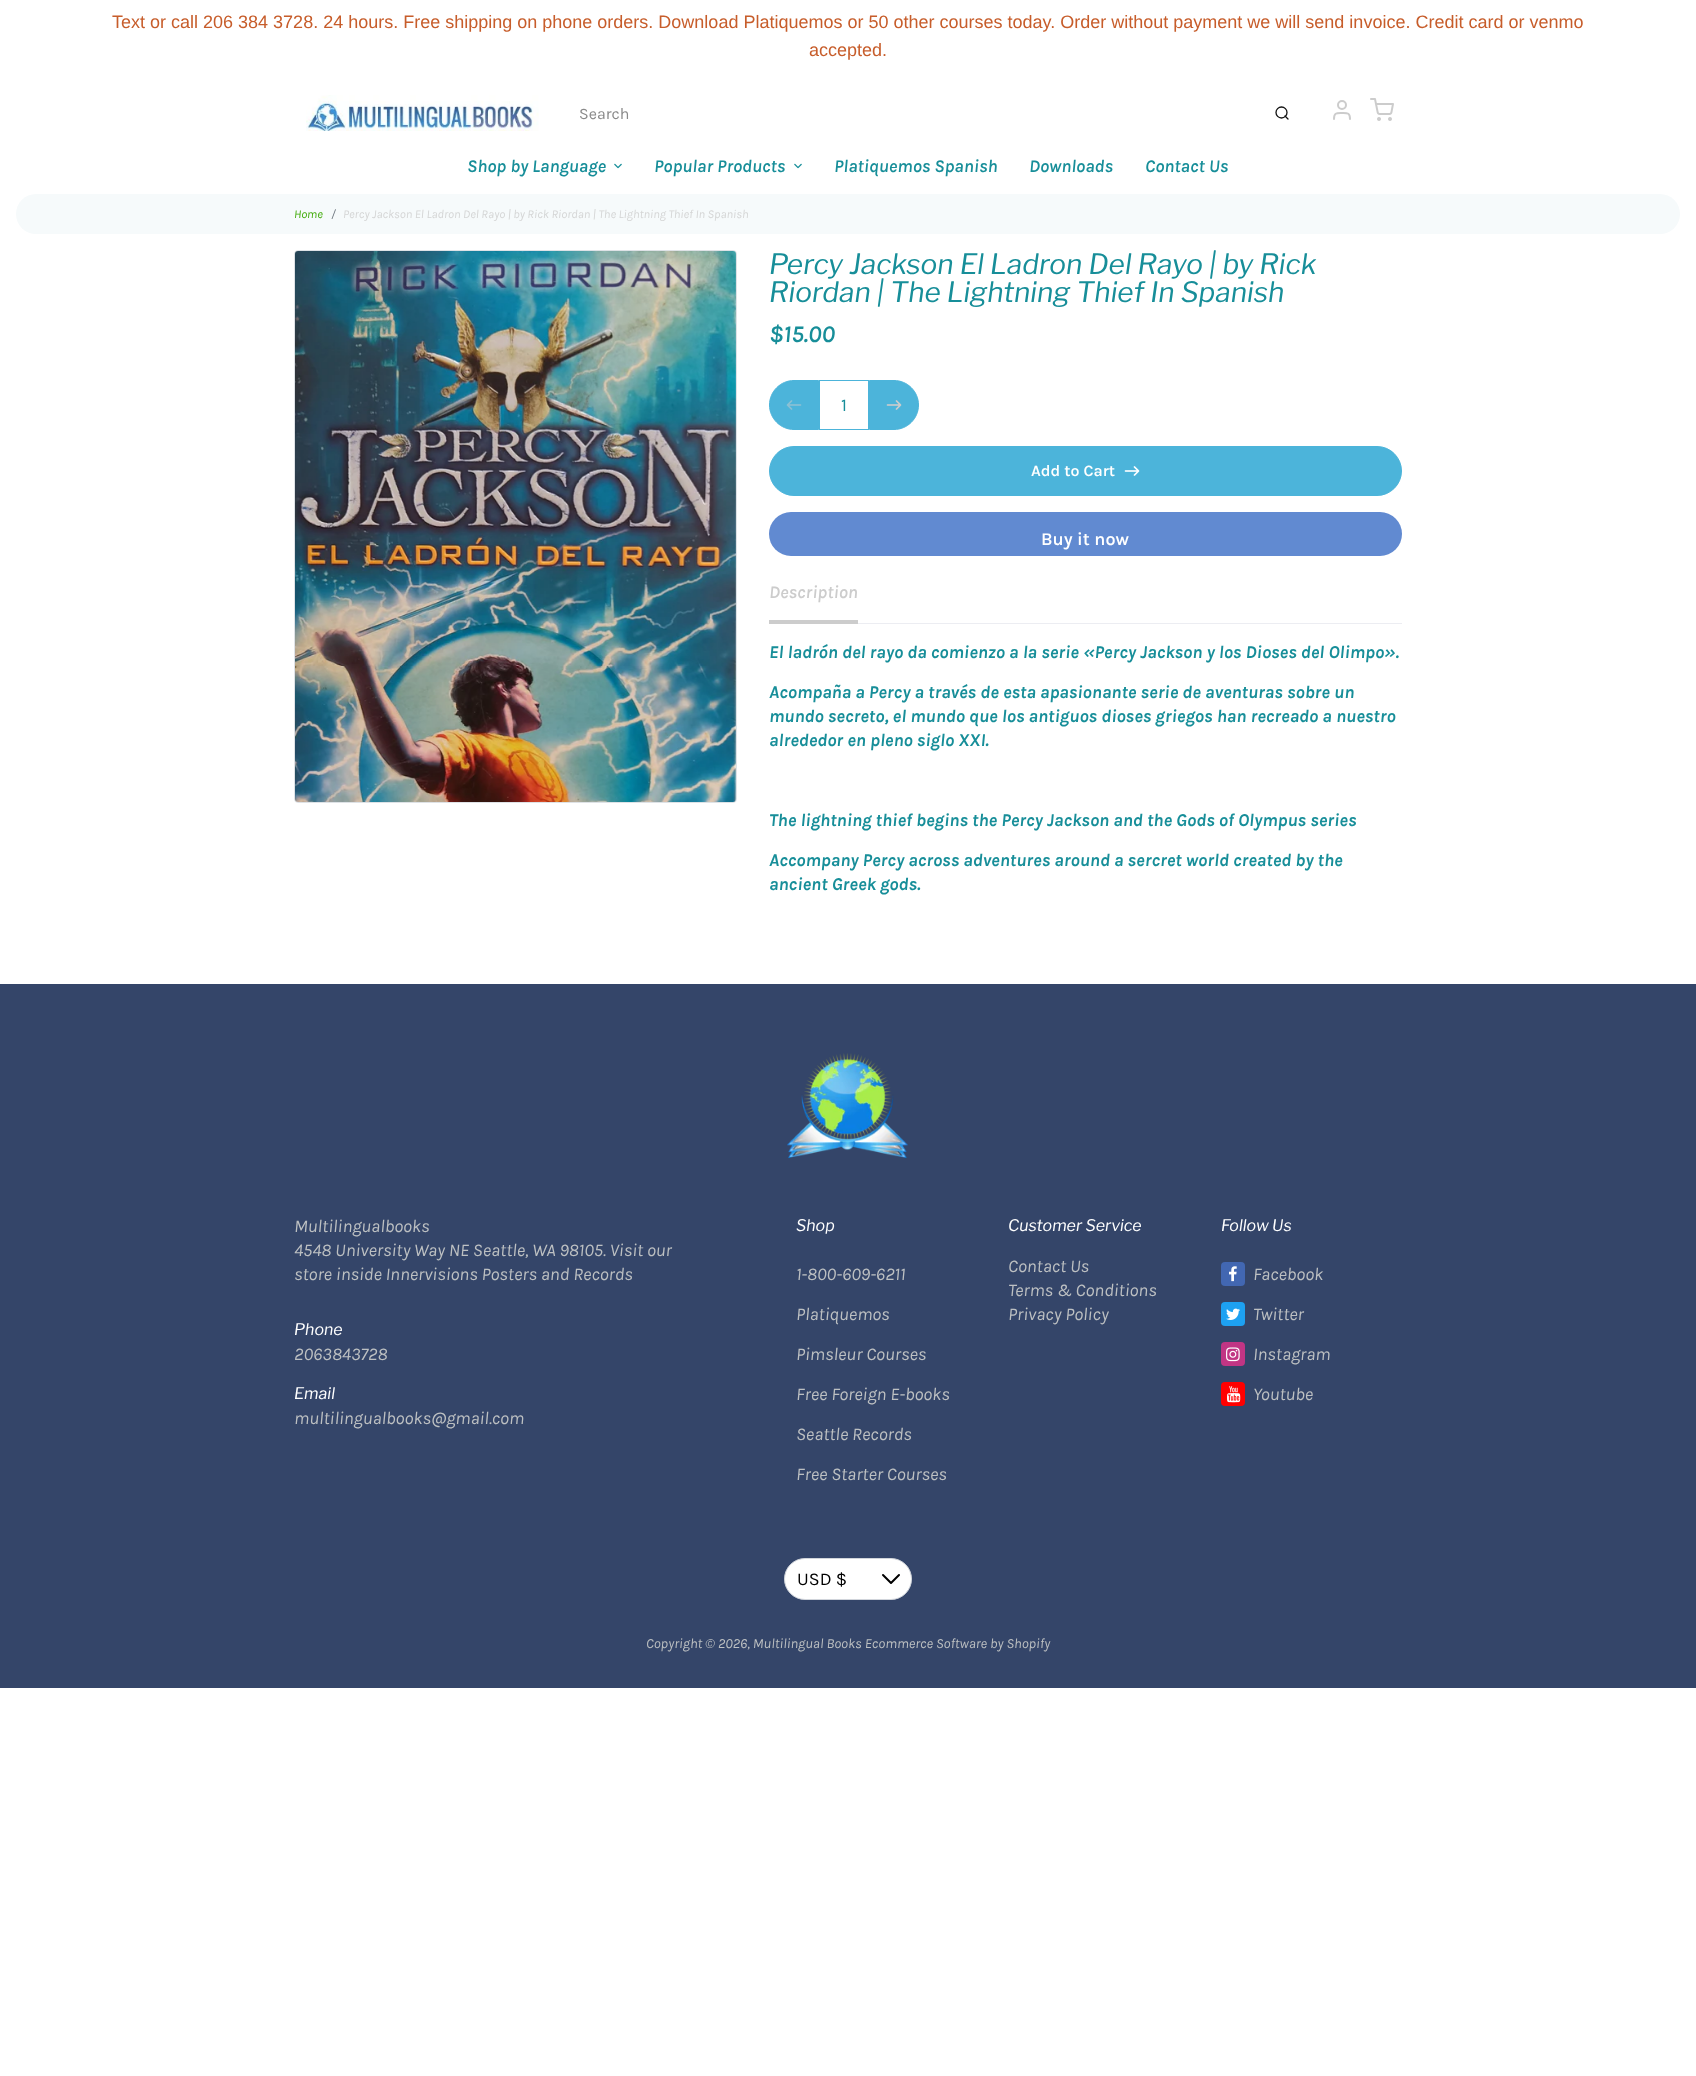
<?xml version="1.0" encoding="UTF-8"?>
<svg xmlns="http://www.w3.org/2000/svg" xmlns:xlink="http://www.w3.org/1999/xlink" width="1696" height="2076">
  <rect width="100%" height="100%" fill="#ffffff" />
  <image x="306" y="95" width="233" height="36" xlink:href="image1.png" />
  <circle cx="1281.5" cy="112.5" r="5.5" fill="none" stroke="#121212" stroke-width="1.3" />
  <path d="M 1288 119 l -3 -3" fill="none" stroke="#121212" stroke-width="1.3" stroke-linecap="round" stroke-linejoin="round" />
  <path d="M 1350 119 c 0 -6.5 -2.5 -6 -8 -6 c -5.5 0 -8 -0.5 -8 6" fill="none" stroke="#cccccc" stroke-width="2" stroke-linecap="round" stroke-linejoin="round" />
  <circle cx="1342" cy="105" r="4" fill="none" stroke="#cccccc" stroke-width="2" />
  <image x="1370" y="98" width="24" height="23" xlink:href="image2.png" />
  <image x="614" y="163" width="8" height="6" xlink:href="image3.png" />
  <image x="794" y="163" width="8" height="6" xlink:href="image3.png" />
  <rect x="16" y="194" width="1664" height="40" rx="20" fill="#f6fafb" />
  <rect x="294.5" y="250.5" width="442" height="552" rx="3.5" fill="none" stroke="#dee2e6" />
  <image x="295" y="251" width="441" height="551" xlink:href="image4.png" />
  <path d="M 794 380.5 h 24.5 v 49 h -24.5 c -13.5 0 -24.5 -11 -24.5 -24.5 c 0 -13.5 11 -24.5 24.5 -24.5 z" fill="#4cb4da" stroke="#4cb4da" />
  <image x="786" y="400" width="16" height="10" xlink:href="image5.png" />
  <rect x="819.5" y="380.5" width="49" height="49" fill="none" stroke="#4cb4da" />
  <path d="M 869.5 380.5 h 24.5 c 13.5 0 24.5 11 24.5 24.5 c 0 13.5 -11 24.5 -24.5 24.5 h -24.5 z" fill="#4cb4da" stroke="#4cb4da" />
  <image x="886" y="400" width="16" height="10" xlink:href="image6.png" />
  <rect x="769.5" y="446.5" width="632" height="49" rx="24.5" fill="#4cb4da" stroke="#4cb4da" />
  <image x="1124" y="466" width="16" height="10" xlink:href="image7.png" />
  <rect x="769" y="512" width="633" height="44" rx="22" fill="#618ad1" />
  <rect x="858" y="623" width="544" height="1" fill="#ecedf2" />
  <rect x="769" y="620" width="89" height="4" fill="#cccccc" />
  <rect y="984" width="1696" height="704" fill="#344569" />
  <image x="787" y="1053" width="121" height="106" xlink:href="image8.png" />
  <rect x="1221" y="1262" width="24" height="24" rx="4" fill="#4267b2" />
  <image x="1229" y="1266" width="8" height="16" xlink:href="image9.png" />
  <rect x="1221" y="1302" width="24" height="24" rx="4" fill="#1da1f2" />
  <image x="1226" y="1308" width="14" height="12" xlink:href="image10.png" />
  <rect x="1221" y="1342" width="24" height="24" rx="4" fill="#c13584" />
  <image x="1226" y="1347" width="14" height="15" xlink:href="image11.png" />
  <rect x="1221" y="1382" width="24" height="24" rx="4" fill="#ff0000" />
  <image x="1227" y="1386" width="14" height="17" xlink:href="image12.png" />
  <rect x="784.5" y="1558.5" width="127" height="41" rx="20.5" fill="#ffffff" stroke="#d1d5db" />
  <path d="M 899 1575 l -8 8 l -8 -8" fill="none" stroke="#000000" stroke-width="2" stroke-linecap="round" stroke-linejoin="round" />
  <text x="112" y="28" style="font-family: Liberation Sans; font-size: 18px; fill: #c75d2b">Text or call 206 384 3728. 24 hours. Free shipping on phone orders. Download Platiquemos or 50 other courses today. Order without payment we will send invoice. Credit card or venmo</text>
  <text x="809" y="56" style="font-family: Liberation Sans; font-size: 18px; fill: #c75d2b">accepted.</text>
  <text x="579" y="119" style="font-family: Karla; font-size: 16px; fill: #898989">Search</text>
  <text x="467" y="172" style="font-family: Karla; font-size: 18px; font-weight: 600; font-style: italic; fill: #178e99">Shop by Language</text>
  <text x="654" y="172" style="font-family: Karla; font-size: 18px; font-weight: 600; font-style: italic; fill: #178e99">Popular Products</text>
  <text x="834" y="172" style="font-family: Karla; font-size: 18px; font-weight: 600; font-style: italic; fill: #178e99">Platiquemos Spanish</text>
  <text x="1029" y="172" style="font-family: Karla; font-size: 18px; font-weight: 600; font-style: italic; fill: #178e99">Downloads</text>
  <text x="1145" y="172" style="font-family: Karla; font-size: 18px; font-weight: 600; font-style: italic; fill: #178e99">Contact Us</text>
  <text x="294" y="218" style="font-family: Karla; font-size: 12px; font-style: italic; fill: #3da904">Home</text>
  <text x="331" y="218" style="font-family: Karla; font-size: 12px; font-style: italic; fill: #6c757d">/</text>
  <text x="343" y="218" style="font-family: Karla; font-size: 12px; font-style: italic; fill: #d4d5d5">Percy Jackson El Ladron Del Rayo | by Rick Riordan | The Lightning Thief In Spanish</text>
  <text x="769" y="274" style="font-family: Libre Franklin; font-size: 28px; font-style: italic; fill: #178e99">Percy Jackson El Ladron Del Rayo | by Rick</text>
  <text x="769" y="302" style="font-family: Libre Franklin; font-size: 28px; font-style: italic; fill: #178e99">Riordan | The Lightning Thief In Spanish</text>
  <text x="769" y="342" style="font-family: Karla; font-size: 24px; font-weight: 600; font-style: italic; fill: #178e99">$15.00</text>
  <text x="841" y="411" style="font-family: Karla; font-size: 18px; fill: #178e99">1</text>
  <text x="1031" y="476" style="font-family: Karla; font-size: 16px; font-weight: 600; fill: #ffffff">Add to Cart</text>
  <text x="1041" y="545" style="font-family: Karla; font-size: 18px; font-weight: 600; fill: #ffffff">Buy it now</text>
  <text x="769" y="598" style="font-family: Karla; font-size: 18px; font-weight: 600; font-style: italic; fill: #cccccc">Description</text>
  <text x="769" y="658" style="font-family: Karla; font-size: 18px; font-weight: bold; font-style: italic; fill: #178e99">El ladrón del rayo da comienzo a la serie «Percy Jackson y los Dioses del Olimpo».</text>
  <text x="769" y="698" style="font-family: Karla; font-size: 18px; font-weight: bold; font-style: italic; fill: #178e99">Acompaña a Percy a través de esta apasionante serie de aventuras sobre un</text>
  <text x="769" y="722" style="font-family: Karla; font-size: 18px; font-weight: bold; font-style: italic; fill: #178e99">mundo secreto, el mundo que los antiguos dioses griegos han recreado a nuestro</text>
  <text x="769" y="746" style="font-family: Karla; font-size: 18px; font-weight: bold; font-style: italic; fill: #178e99">alrededor en pleno siglo XXI.</text>
  <text x="769" y="826" style="font-family: Karla; font-size: 18px; font-weight: bold; font-style: italic; fill: #178e99">The lightning thief begins the Percy Jackson and the Gods of Olympus series</text>
  <text x="769" y="866" style="font-family: Karla; font-size: 18px; font-weight: bold; font-style: italic; fill: #178e99">Accompany Percy across adventures around a sercret world created by the</text>
  <text x="769" y="890" style="font-family: Karla; font-size: 18px; font-weight: bold; font-style: italic; fill: #178e99">ancient Greek gods.</text>
  <text x="294" y="1232" style="font-family: Karla; font-size: 18px; font-style: italic; fill: #bdc0c2">Multilingualbooks</text>
  <text x="294" y="1256" style="font-family: Karla; font-size: 18px; font-style: italic; fill: #bdc0c2">4548 University Way NE Seattle, WA 98105. Visit our</text>
  <text x="294" y="1280" style="font-family: Karla; font-size: 18px; font-style: italic; fill: #bdc0c2">store inside Innervisions Posters and Records</text>
  <text x="294" y="1335" style="font-family: Libre Franklin; font-size: 16px; font-style: italic; fill: #ffffff">Phone</text>
  <text x="294" y="1360" style="font-family: Karla; font-size: 18px; font-style: italic; fill: #bdc0c2">2063843728</text>
  <text x="294" y="1399" style="font-family: Libre Franklin; font-size: 16px; font-style: italic; fill: #ffffff">Email</text>
  <text x="294" y="1424" style="font-family: Karla; font-size: 18px; font-style: italic; fill: #bdc0c2">multilingualbooks@gmail.com</text>
  <text x="796" y="1231" style="font-family: Libre Franklin; font-size: 16px; font-style: italic; fill: #ffffff">Shop</text>
  <text x="796" y="1280" style="font-family: Karla; font-size: 18px; font-style: italic; fill: #bdc0c2">1-800-609-6211</text>
  <text x="796" y="1320" style="font-family: Karla; font-size: 18px; font-style: italic; fill: #bdc0c2">Platiquemos</text>
  <text x="796" y="1360" style="font-family: Karla; font-size: 18px; font-style: italic; fill: #bdc0c2">Pimsleur Courses</text>
  <text x="796" y="1400" style="font-family: Karla; font-size: 18px; font-style: italic; fill: #bdc0c2">Free Foreign E-books</text>
  <text x="796" y="1440" style="font-family: Karla; font-size: 18px; font-style: italic; fill: #bdc0c2">Seattle Records</text>
  <text x="796" y="1480" style="font-family: Karla; font-size: 18px; font-style: italic; fill: #bdc0c2">Free Starter Courses</text>
  <text x="1008" y="1231" style="font-family: Libre Franklin; font-size: 16px; font-style: italic; fill: #ffffff">Customer Service</text>
  <text x="1008" y="1272" style="font-family: Karla; font-size: 18px; font-style: italic; fill: #bdc0c2">Contact Us</text>
  <text x="1008" y="1296" style="font-family: Karla; font-size: 18px; font-style: italic; fill: #bdc0c2">Terms &amp; Conditions</text>
  <text x="1008" y="1320" style="font-family: Karla; font-size: 18px; font-style: italic; fill: #bdc0c2">Privacy Policy</text>
  <text x="1221" y="1231" style="font-family: Libre Franklin; font-size: 16px; font-style: italic; fill: #ffffff">Follow Us</text>
  <text x="1253" y="1280" style="font-family: Karla; font-size: 18px; font-style: italic; fill: #bdc0c2">Facebook</text>
  <text x="1253" y="1320" style="font-family: Karla; font-size: 18px; font-style: italic; fill: #bdc0c2">Twitter</text>
  <text x="1253" y="1360" style="font-family: Karla; font-size: 18px; font-style: italic; fill: #bdc0c2">Instagram</text>
  <text x="1253" y="1400" style="font-family: Karla; font-size: 18px; font-style: italic; fill: #bdc0c2">Youtube</text>
  <text x="797" y="1585" style="font-family: Karla; font-size: 18px; fill: #000000">USD $</text>
  <text x="646" y="1648" style="font-family: Karla; font-size: 14px; font-style: italic; fill: #bdc0c2">Copyright © 2026, Multilingual Books Ecommerce Software by Shopify</text>
</svg>
